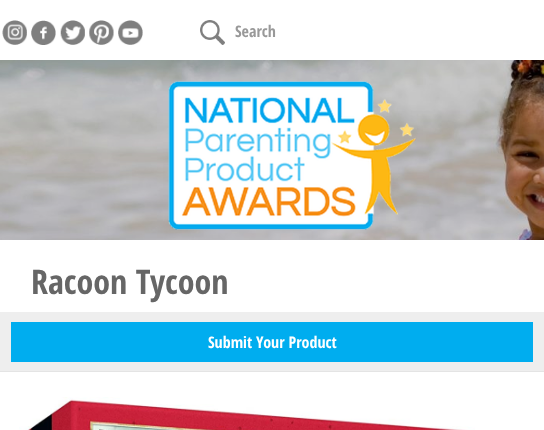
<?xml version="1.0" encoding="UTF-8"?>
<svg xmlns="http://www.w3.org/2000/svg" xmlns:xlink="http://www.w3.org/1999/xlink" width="544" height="430">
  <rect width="100%" height="100%" fill="#ffffff" />
  <image x="2" y="20" width="25" height="25" xlink:href="image1.png" />
  <image x="31" y="20" width="25" height="25" xlink:href="image2.png" />
  <image x="60" y="20" width="25" height="25" xlink:href="image3.png" />
  <image x="89" y="20" width="25" height="25" xlink:href="image4.png" />
  <image x="118" y="20" width="25" height="25" xlink:href="image5.png" />
  <image x="200" y="20" width="25" height="25" xlink:href="image6.png" />
  <image x="0" y="60" width="544" height="180" xlink:href="image7.png" />
  <image x="168" y="81" width="248" height="149" xlink:href="image8.png" />
  <rect y="312" width="544" height="59" fill="#eeeeee" />
  <rect y="371" width="544" height="1" fill="#e4e4e4" />
  <rect x="11" y="322" width="522" height="40" fill="#00adef" />
  <image x="19" y="397" width="456" height="33" xlink:href="image9.png" />
  <text x="235" y="37" style="font-family: Open Sans Condensed; font-size: 16px; font-weight: bold; fill: #999999">Search</text>
  <text x="31" y="294" style="font-family: Open Sans Condensed; font-size: 34px; font-weight: bold; fill: #666666">Racoon Tycoon</text>
  <text x="208" y="348" style="font-family: Open Sans Condensed; font-size: 16px; font-weight: bold; fill: #ffffff">Submit Your Product</text>
</svg>
